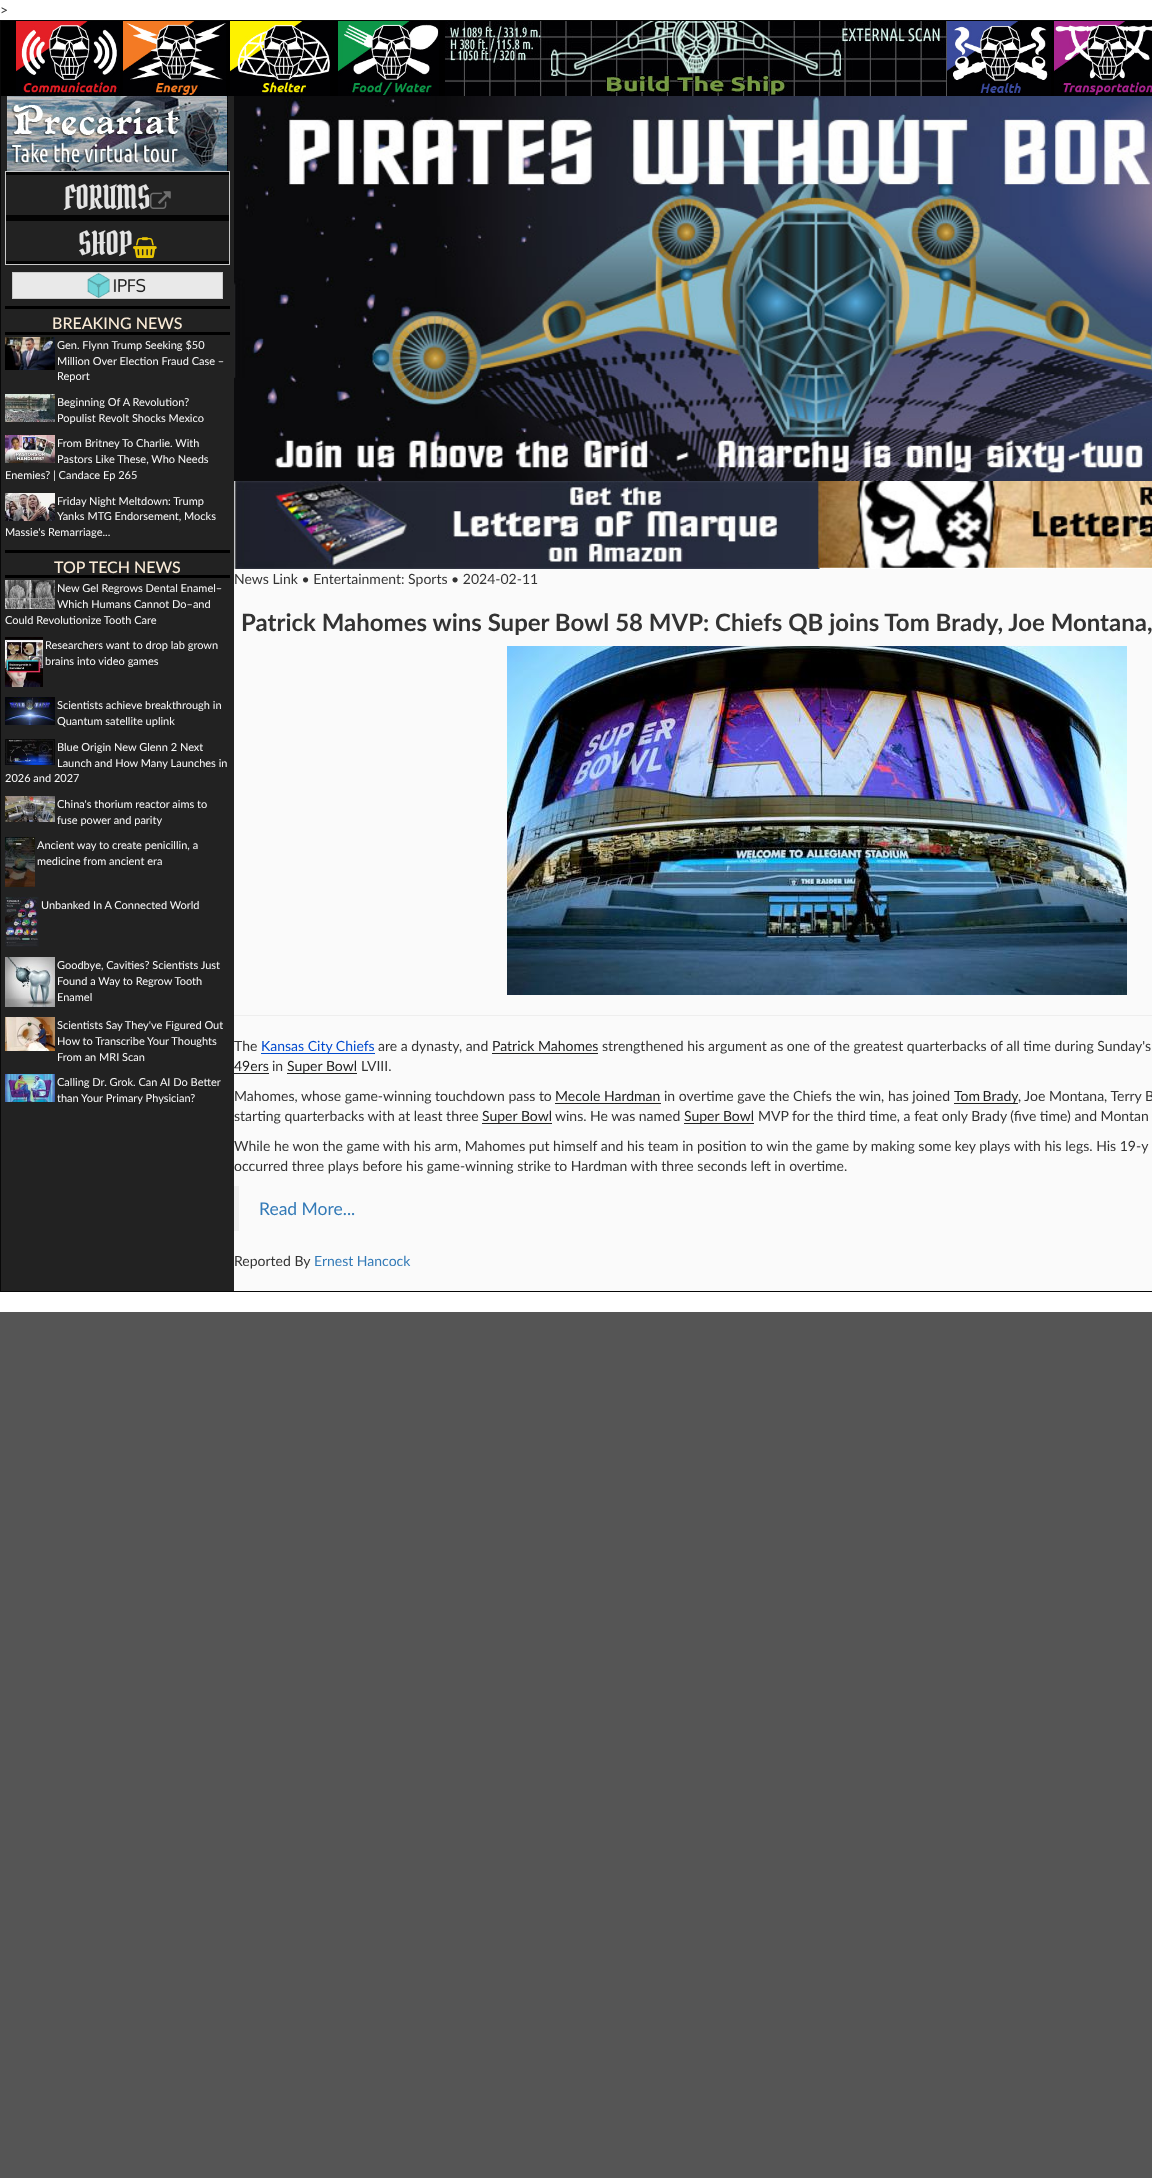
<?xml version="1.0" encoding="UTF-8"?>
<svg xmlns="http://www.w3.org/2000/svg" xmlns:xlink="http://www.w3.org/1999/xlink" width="1152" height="2178">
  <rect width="100%" height="100%" fill="#555555" />
  <rect width="1152" height="1312" fill="#ffffff" />
  <rect x="0.5" y="20.5" width="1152" height="1271" fill="none" stroke="#080808" />
  <rect x="1" y="21" width="1053" height="75" fill="#000000" />
  <image x="16" y="21" width="104" height="75" xlink:href="image1.png" />
  <image x="123" y="21" width="103" height="75" xlink:href="image2.png" />
  <image x="230" y="21" width="100" height="75" xlink:href="image3.png" />
  <image x="338" y="21" width="101" height="75" xlink:href="image4.png" />
  <image x="445" y="21" width="502" height="75" xlink:href="image5.png" />
  <image x="947" y="21" width="104" height="75" xlink:href="image6.png" />
  <image x="1054" y="21" width="98" height="75" xlink:href="image7.png" />
  <rect x="234" y="569" width="918" height="722" fill="#fafafa" />
  <rect x="1" y="96" width="233" height="1195" fill="#222222" />
  <image x="7" y="96" width="221" height="75" xlink:href="image8.png" />
  <rect x="5.5" y="171.5" width="224" height="93" fill="none" stroke="#cacaca" />
  <rect x="6" y="172" width="223" height="3" fill="#030303" />
  <rect x="6" y="215" width="223" height="6" fill="#030303" />
  <image x="150" y="191" width="21" height="18" xlink:href="image9.png" />
  <rect x="6" y="261" width="223" height="3" fill="#030303" />
  <image x="133" y="237" width="24" height="21" xlink:href="image10.png" />
  <rect x="12.5" y="272.5" width="210" height="26" fill="#e9e9e9" stroke="#cacaca" />
  <image x="87" y="273" width="59" height="25" xlink:href="image11.png" />
  <rect x="5" y="306" width="225" height="3" fill="#000000" />
  <rect x="5" y="332" width="225" height="3" fill="#000000" />
  <image x="5" y="337" width="50" height="33" xlink:href="image12.png" />
  <image x="5" y="394" width="50" height="28" xlink:href="image13.png" />
  <image x="5" y="435" width="50" height="28" xlink:href="image14.png" />
  <image x="5" y="493" width="50" height="28" xlink:href="image15.png" />
  <rect x="5" y="550" width="225" height="3" fill="#000000" />
  <rect x="5" y="575" width="225" height="3" fill="#000000" />
  <image x="5" y="580" width="50" height="29" xlink:href="image16.png" />
  <image x="5" y="637" width="38" height="50" xlink:href="image17.png" />
  <image x="5" y="697" width="50" height="28" xlink:href="image18.png" />
  <image x="5" y="739" width="50" height="26" xlink:href="image19.png" />
  <image x="5" y="796" width="50" height="26" xlink:href="image20.png" />
  <image x="5" y="837" width="30" height="50" xlink:href="image21.png" />
  <image x="5" y="897" width="34" height="50" xlink:href="image22.png" />
  <image x="5" y="957" width="50" height="50" xlink:href="image23.png" />
  <image x="5" y="1017" width="50" height="34" xlink:href="image24.png" />
  <image x="5" y="1074" width="50" height="28" xlink:href="image25.png" />
  <image x="234" y="96" width="918" height="385" xlink:href="image26.png" />
  <image x="234" y="481" width="583" height="88" xlink:href="image27.png" />
  <image x="817" y="481" width="335" height="88" xlink:href="image28.png" />
  <image x="507" y="646" width="620" height="349" xlink:href="image29.png" />
  <rect x="234" y="1015" width="918" height="1" fill="#eeeeee" />
  <rect x="261" y="1053" width="114" height="1" fill="#004ace" />
  <rect x="492" y="1053" width="106" height="1" fill="#202121" />
  <rect x="234" y="1073" width="35" height="1" fill="#202121" />
  <rect x="287" y="1073" width="70" height="1" fill="#202121" />
  <rect x="555" y="1103" width="106" height="1" fill="#202121" />
  <rect x="954" y="1103" width="64" height="1" fill="#202121" />
  <rect x="482" y="1123" width="70" height="1" fill="#202121" />
  <rect x="684" y="1123" width="70" height="1" fill="#202121" />
  <rect x="234" y="1186" width="5" height="45" fill="#eeeeee" />
  <text x="0" y="15" style="font-family: Lato; font-size: 14px; fill: #333333">&gt;</text>
  <text x="64" y="209" style="font-family: Pirata One; font-size: 32px; fill: #e4e4e4">FORUMS</text>
  <text x="78" y="255" style="font-family: Pirata One; font-size: 32px; fill: #e4e4e4">SHOP</text>
  <text x="52" y="329" style="font-family: Lato; font-size: 16px; font-weight: 500; fill: #faebd7">BREAKING NEWS</text>
  <text x="57" y="349" style="font-family: Lato; font-size: 11px; fill: #fafafa">Gen. Flynn Trump Seeking $50</text>
  <text x="57" y="365" style="font-family: Lato; font-size: 11px; fill: #fafafa">Million Over Election Fraud Case –</text>
  <text x="57" y="380" style="font-family: Lato; font-size: 11px; fill: #fafafa">Report</text>
  <text x="57" y="406" style="font-family: Lato; font-size: 11px; fill: #fafafa">Beginning Of A Revolution?</text>
  <text x="57" y="422" style="font-family: Lato; font-size: 11px; fill: #fafafa">Populist Revolt Shocks Mexico</text>
  <text x="57" y="447" style="font-family: Lato; font-size: 11px; fill: #fafafa">From Britney To Charlie. With</text>
  <text x="57" y="463" style="font-family: Lato; font-size: 11px; fill: #fafafa">Pastors Like These, Who Needs</text>
  <text x="5" y="479" style="font-family: Lato; font-size: 11px; fill: #fafafa">Enemies? | Candace Ep 265</text>
  <text x="57" y="505" style="font-family: Lato; font-size: 11px; fill: #fafafa">Friday Night Meltdown: Trump</text>
  <text x="57" y="520" style="font-family: Lato; font-size: 11px; fill: #fafafa">Yanks MTG Endorsement, Mocks</text>
  <text x="5" y="536" style="font-family: Lato; font-size: 11px; fill: #fafafa">Massie's Remarriage...</text>
  <text x="54" y="573" style="font-family: Lato; font-size: 16px; font-weight: 500; fill: #faebd7">TOP TECH NEWS</text>
  <text x="57" y="592" style="font-family: Lato; font-size: 11px; fill: #fafafa">New Gel Regrows Dental Enamel–</text>
  <text x="57" y="608" style="font-family: Lato; font-size: 11px; fill: #fafafa">Which Humans Cannot Do–and</text>
  <text x="5" y="624" style="font-family: Lato; font-size: 11px; fill: #fafafa">Could Revolutionize Tooth Care</text>
  <text x="45" y="649" style="font-family: Lato; font-size: 11px; fill: #fafafa">Researchers want to drop lab grown</text>
  <text x="45" y="665" style="font-family: Lato; font-size: 11px; fill: #fafafa">brains into video games</text>
  <text x="57" y="709" style="font-family: Lato; font-size: 11px; fill: #fafafa">Scientists achieve breakthrough in</text>
  <text x="57" y="725" style="font-family: Lato; font-size: 11px; fill: #fafafa">Quantum satellite uplink</text>
  <text x="57" y="751" style="font-family: Lato; font-size: 11px; fill: #fafafa">Blue Origin New Glenn 2 Next</text>
  <text x="57" y="767" style="font-family: Lato; font-size: 11px; fill: #fafafa">Launch and How Many Launches in</text>
  <text x="5" y="782" style="font-family: Lato; font-size: 11px; fill: #fafafa">2026 and 2027</text>
  <text x="57" y="808" style="font-family: Lato; font-size: 11px; fill: #fafafa">China's thorium reactor aims to</text>
  <text x="57" y="824" style="font-family: Lato; font-size: 11px; fill: #fafafa">fuse power and parity</text>
  <text x="37" y="849" style="font-family: Lato; font-size: 11px; fill: #fafafa">Ancient way to create penicillin, a</text>
  <text x="37" y="865" style="font-family: Lato; font-size: 11px; fill: #fafafa">medicine from ancient era</text>
  <text x="41" y="909" style="font-family: Lato; font-size: 11px; fill: #fafafa">Unbanked In A Connected World</text>
  <text x="57" y="969" style="font-family: Lato; font-size: 11px; fill: #fafafa">Goodbye, Cavities? Scientists Just</text>
  <text x="57" y="985" style="font-family: Lato; font-size: 11px; fill: #fafafa">Found a Way to Regrow Tooth</text>
  <text x="57" y="1001" style="font-family: Lato; font-size: 11px; fill: #fafafa">Enamel</text>
  <text x="57" y="1029" style="font-family: Lato; font-size: 11px; fill: #fafafa">Scientists Say They've Figured Out</text>
  <text x="57" y="1045" style="font-family: Lato; font-size: 11px; fill: #fafafa">How to Transcribe Your Thoughts</text>
  <text x="57" y="1061" style="font-family: Lato; font-size: 11px; fill: #fafafa">From an MRI Scan</text>
  <text x="57" y="1086" style="font-family: Lato; font-size: 11px; fill: #fafafa">Calling Dr. Grok. Can AI Do Better</text>
  <text x="57" y="1102" style="font-family: Lato; font-size: 11px; fill: #fafafa">than Your Primary Physician?</text>
  <text x="234" y="584" style="font-family: Lato; font-size: 14px; fill: #333333">News Link • Entertainment: Sports • 2024-02-11</text>
  <text x="241" y="631" style="font-family: Lato; font-size: 24px; font-weight: bold; fill: #333333">Patrick Mahomes wins Super Bowl 58 MVP: Chiefs QB joins Tom Brady, Joe Montana,</text>
  <text x="234" y="1051" style="font-family: Lato; font-size: 14px; fill: #333333">The</text>
  <text x="261" y="1051" style="font-family: Lato; font-size: 14px; fill: #004ace">Kansas City Chiefs</text>
  <text x="378" y="1051" style="font-family: Lato; font-size: 14px; fill: #333333">are a dynasty, and</text>
  <text x="492" y="1051" style="font-family: Lato; font-size: 14px; fill: #202121">Patrick Mahomes</text>
  <text x="602" y="1051" style="font-family: Lato; font-size: 14px; fill: #333333">strengthened his argument as one of the greatest quarterbacks of all time during Sunday's</text>
  <text x="234" y="1071" style="font-family: Lato; font-size: 14px; fill: #202121">49ers</text>
  <text x="272" y="1071" style="font-family: Lato; font-size: 14px; fill: #333333">in</text>
  <text x="287" y="1071" style="font-family: Lato; font-size: 14px; fill: #202121">Super Bowl</text>
  <text x="361" y="1071" style="font-family: Lato; font-size: 14px; fill: #333333">LVIII.</text>
  <text x="234" y="1101" style="font-family: Lato; font-size: 14px; fill: #333333">Mahomes, whose game-winning touchdown pass to</text>
  <text x="555" y="1101" style="font-family: Lato; font-size: 14px; fill: #202121">Mecole Hardman</text>
  <text x="664" y="1101" style="font-family: Lato; font-size: 14px; fill: #333333">in overtime gave the Chiefs the win, has joined</text>
  <text x="954" y="1101" word-spacing="-1" style="font-family: Lato; font-size: 14px; fill: #202121">Tom Brady</text>
  <text x="1018" y="1101" style="font-family: Lato; font-size: 14px; fill: #333333">, Joe Montana, Terry B</text>
  <text x="234" y="1121" style="font-family: Lato; font-size: 14px; fill: #333333">starting quarterbacks with at least three</text>
  <text x="482" y="1121" style="font-family: Lato; font-size: 14px; fill: #202121">Super Bowl</text>
  <text x="555" y="1121" style="font-family: Lato; font-size: 14px; fill: #333333">wins. He was named</text>
  <text x="684" y="1121" style="font-family: Lato; font-size: 14px; fill: #202121">Super Bowl</text>
  <text x="758" y="1121" style="font-family: Lato; font-size: 14px; fill: #333333">MVP for the third time, a feat only Brady (five time) and Montan</text>
  <text x="234" y="1151" style="font-family: Lato; font-size: 14px; fill: #333333">While he won the game with his arm, Mahomes put himself and his team in position to win the game by making some key plays with his legs. His 19-y</text>
  <text x="234" y="1171" style="font-family: Lato; font-size: 14px; fill: #333333">occurred three plays before his game-winning strike to Hardman with three seconds left in overtime.</text>
  <text x="259" y="1215" style="font-family: Lato; font-size: 17.5px; fill: #337ab7">Read More...</text>
  <text x="234" y="1266" style="font-family: Lato; font-size: 14px; fill: #333333">Reported By</text>
  <text x="314" y="1266" style="font-family: Lato; font-size: 14px; fill: #337ab7">Ernest Hancock</text>
</svg>
